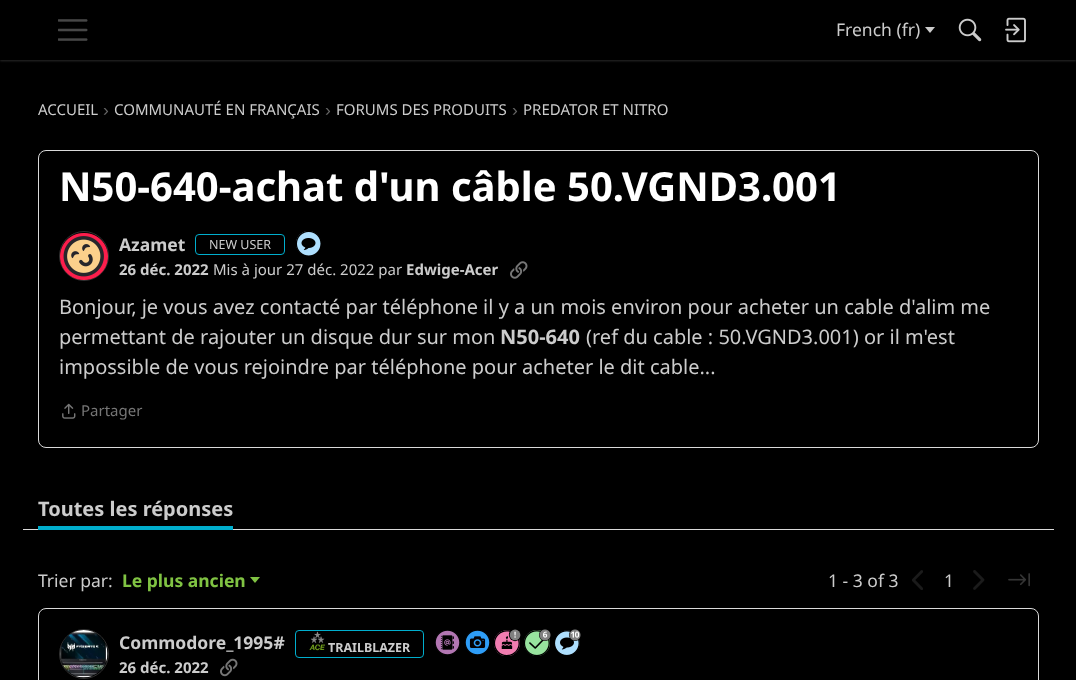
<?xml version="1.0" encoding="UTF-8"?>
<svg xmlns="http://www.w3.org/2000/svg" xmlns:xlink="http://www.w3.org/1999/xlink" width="1076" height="680">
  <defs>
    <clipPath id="clip1"><rect x="38" y="498" width="195" height="22" /></clipPath>
  </defs>
  <rect width="100%" height="100%" fill="#000000" />
  <rect y="1" width="1076" height="60" fill="#bbbbbb" fill-opacity="0.22" filter="blur(1px)" />
  <rect width="1076" height="60" fill="#000000" />
  <image x="58" y="19" width="30" height="22" xlink:href="image1.png" />
  <path d="M 925 27 h 10 l -5 6 z" fill="#cccccc" />
  <image x="958" y="18" width="24" height="24" xlink:href="image2.png" />
  <image x="1005" y="17" width="21" height="26" xlink:href="image3.png" />
  <rect x="38.5" y="150.5" width="1000" height="297" rx="7.5" fill="none" stroke="#dadada" />
  <circle cx="84" cy="256" r="24.5" fill="none" stroke="#313131" />
  <image x="60" y="233" width="48" height="47" xlink:href="image4.png" />
  <rect x="195.5" y="234.5" width="89" height="20" rx="3.5" fill="none" stroke="#00aecd" />
  <image x="296" y="231" width="25" height="25" xlink:href="image5.png" />
  <image x="510" y="261" width="18" height="18" xlink:href="image6.png" />
  <image x="62" y="403" width="14" height="16" xlink:href="image7.png" />
  <rect x="23" y="529" width="1031" height="1" fill="#dadada" />
  <rect x="38" y="526" width="195" height="4" fill="#00aecd" />
  <path d="M 250 577 h 10 l -5 6 z" fill="#80c343" />
  <image x="912" y="570" width="11" height="20" xlink:href="image8.png" />
  <image x="973" y="570" width="12" height="20" xlink:href="image9.png" />
  <image x="1008" y="573" width="22" height="14" xlink:href="image10.png" />
  <rect x="38.5" y="608.5" width="1000" height="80" rx="7.5" fill="none" stroke="#dadada" />
  <circle cx="84" cy="654" r="24.5" fill="none" stroke="#313131" />
  <image x="60" y="630" width="48" height="48" xlink:href="image11.png" />
  <rect x="295.5" y="630.5" width="128" height="27" rx="3.5" fill="none" stroke="#00aecd" />
  <image x="309" y="631" width="17" height="20" xlink:href="image12.png" />
  <image x="435" y="630" width="25" height="25" xlink:href="image13.png" />
  <image x="465" y="630" width="25" height="25" xlink:href="image14.png" />
  <image x="494" y="629" width="27" height="27" xlink:href="image15.png" />
  <image x="524" y="629" width="27" height="27" xlink:href="image16.png" />
  <image x="555" y="629" width="26" height="26" xlink:href="image17.png" />
  <image x="220" y="658" width="18" height="19" xlink:href="image18.png" />
  <text x="836" y="36" style="font-family: Noto Sans; font-size: 17.5px; fill: #cccccc">French (fr)</text>
  <text x="38" y="115" style="font-family: Noto Sans; font-size: 15px; fill: #cccccc">ACCUEIL</text>
  <text x="103" y="116" style="font-family: Liberation Sans; font-size: 17.5px; fill: #666666">›</text>
  <text x="114" y="115" style="font-family: Noto Sans; font-size: 15px; fill: #cccccc">COMMUNAUTÉ EN FRANÇAIS</text>
  <text x="325" y="116" style="font-family: Liberation Sans; font-size: 17.5px; fill: #666666">›</text>
  <text x="336" y="115" style="font-family: Noto Sans; font-size: 15px; fill: #cccccc">FORUMS DES PRODUITS</text>
  <text x="512" y="116" style="font-family: Liberation Sans; font-size: 17.5px; fill: #666666">›</text>
  <text x="523" y="115" style="font-family: Noto Sans; font-size: 15px; fill: #cccccc">PREDATOR ET NITRO</text>
  <text x="59" y="201" style="font-family: Noto Sans; font-size: 40px; font-weight: bold; fill: #ffffff">N50-640-achat d'un câble 50.VGND3.001</text>
  <text x="119" y="251" style="font-family: Noto Sans; font-size: 17.5px; font-weight: bold; fill: #cccccc">Azamet</text>
  <text x="209" y="249" style="font-family: Noto Sans; font-size: 12.5px; fill: #cccccc">NEW USER</text>
  <text x="119" y="275" style="font-family: Noto Sans; font-size: 15px; font-weight: bold; fill: #cccccc">26 déc. 2022</text>
  <text x="213" y="275" style="font-family: Noto Sans; font-size: 15px; fill: #cccccc">Mis à jour 27 déc. 2022 par</text>
  <text x="406" y="275" style="font-family: Noto Sans; font-size: 15px; font-weight: bold; fill: #cccccc">Edwige-Acer</text>
  <text x="59" y="314" style="font-family: Noto Sans; font-size: 20px; fill: #cccccc">Bonjour, je vous avez contacté par téléphone il y a un mois environ pour acheter un cable d'alim me</text>
  <text x="59" y="344" style="font-family: Noto Sans; font-size: 20px; fill: #cccccc">permettant de rajouter un disque dur sur mon</text>
  <text x="500" y="344" style="font-family: Noto Sans; font-size: 20px; font-weight: bold; fill: #cccccc">N50-640</text>
  <text x="586" y="344" style="font-family: Noto Sans; font-size: 20px; fill: #cccccc">(ref du cable : 50.VGND3.001) or il m'est</text>
  <text x="59" y="374" style="font-family: Noto Sans; font-size: 20px; fill: #cccccc">impossible de vous rejoindre par téléphone pour acheter le dit cable...</text>
  <text x="81" y="416" style="font-family: Noto Sans; font-size: 15px; fill: #767676">Partager</text>
  <g clip-path="url(#clip1)">
    <text x="38" y="516" style="font-family: Noto Sans; font-size: 20px; font-weight: bold; fill: #cccccc">Toutes les réponses</text>
  </g>
  <text x="38" y="587" style="font-family: Noto Sans; font-size: 17.5px; fill: #cccccc">Trier par:</text>
  <text x="122" y="587" style="font-family: Noto Sans; font-size: 17.5px; font-weight: bold; fill: #80c343">Le plus ancien</text>
  <text x="828" y="587" style="font-family: Noto Sans; font-size: 17.5px; fill: #cccccc">1 - 3 of 3</text>
  <text x="944" y="587" style="font-family: Noto Sans; font-size: 17.5px; fill: #cccccc">1</text>
  <text x="119" y="649" style="font-family: Noto Sans; font-size: 17.5px; font-weight: bold; fill: #cccccc">Commodore_1995#</text>
  <text x="328" y="652" style="font-family: Noto Sans; font-size: 12.5px; font-weight: bold; fill: #cccccc">TRAILBLAZER</text>
  <text x="119" y="673" style="font-family: Noto Sans; font-size: 15px; font-weight: bold; fill: #cccccc">26 déc. 2022</text>
</svg>
